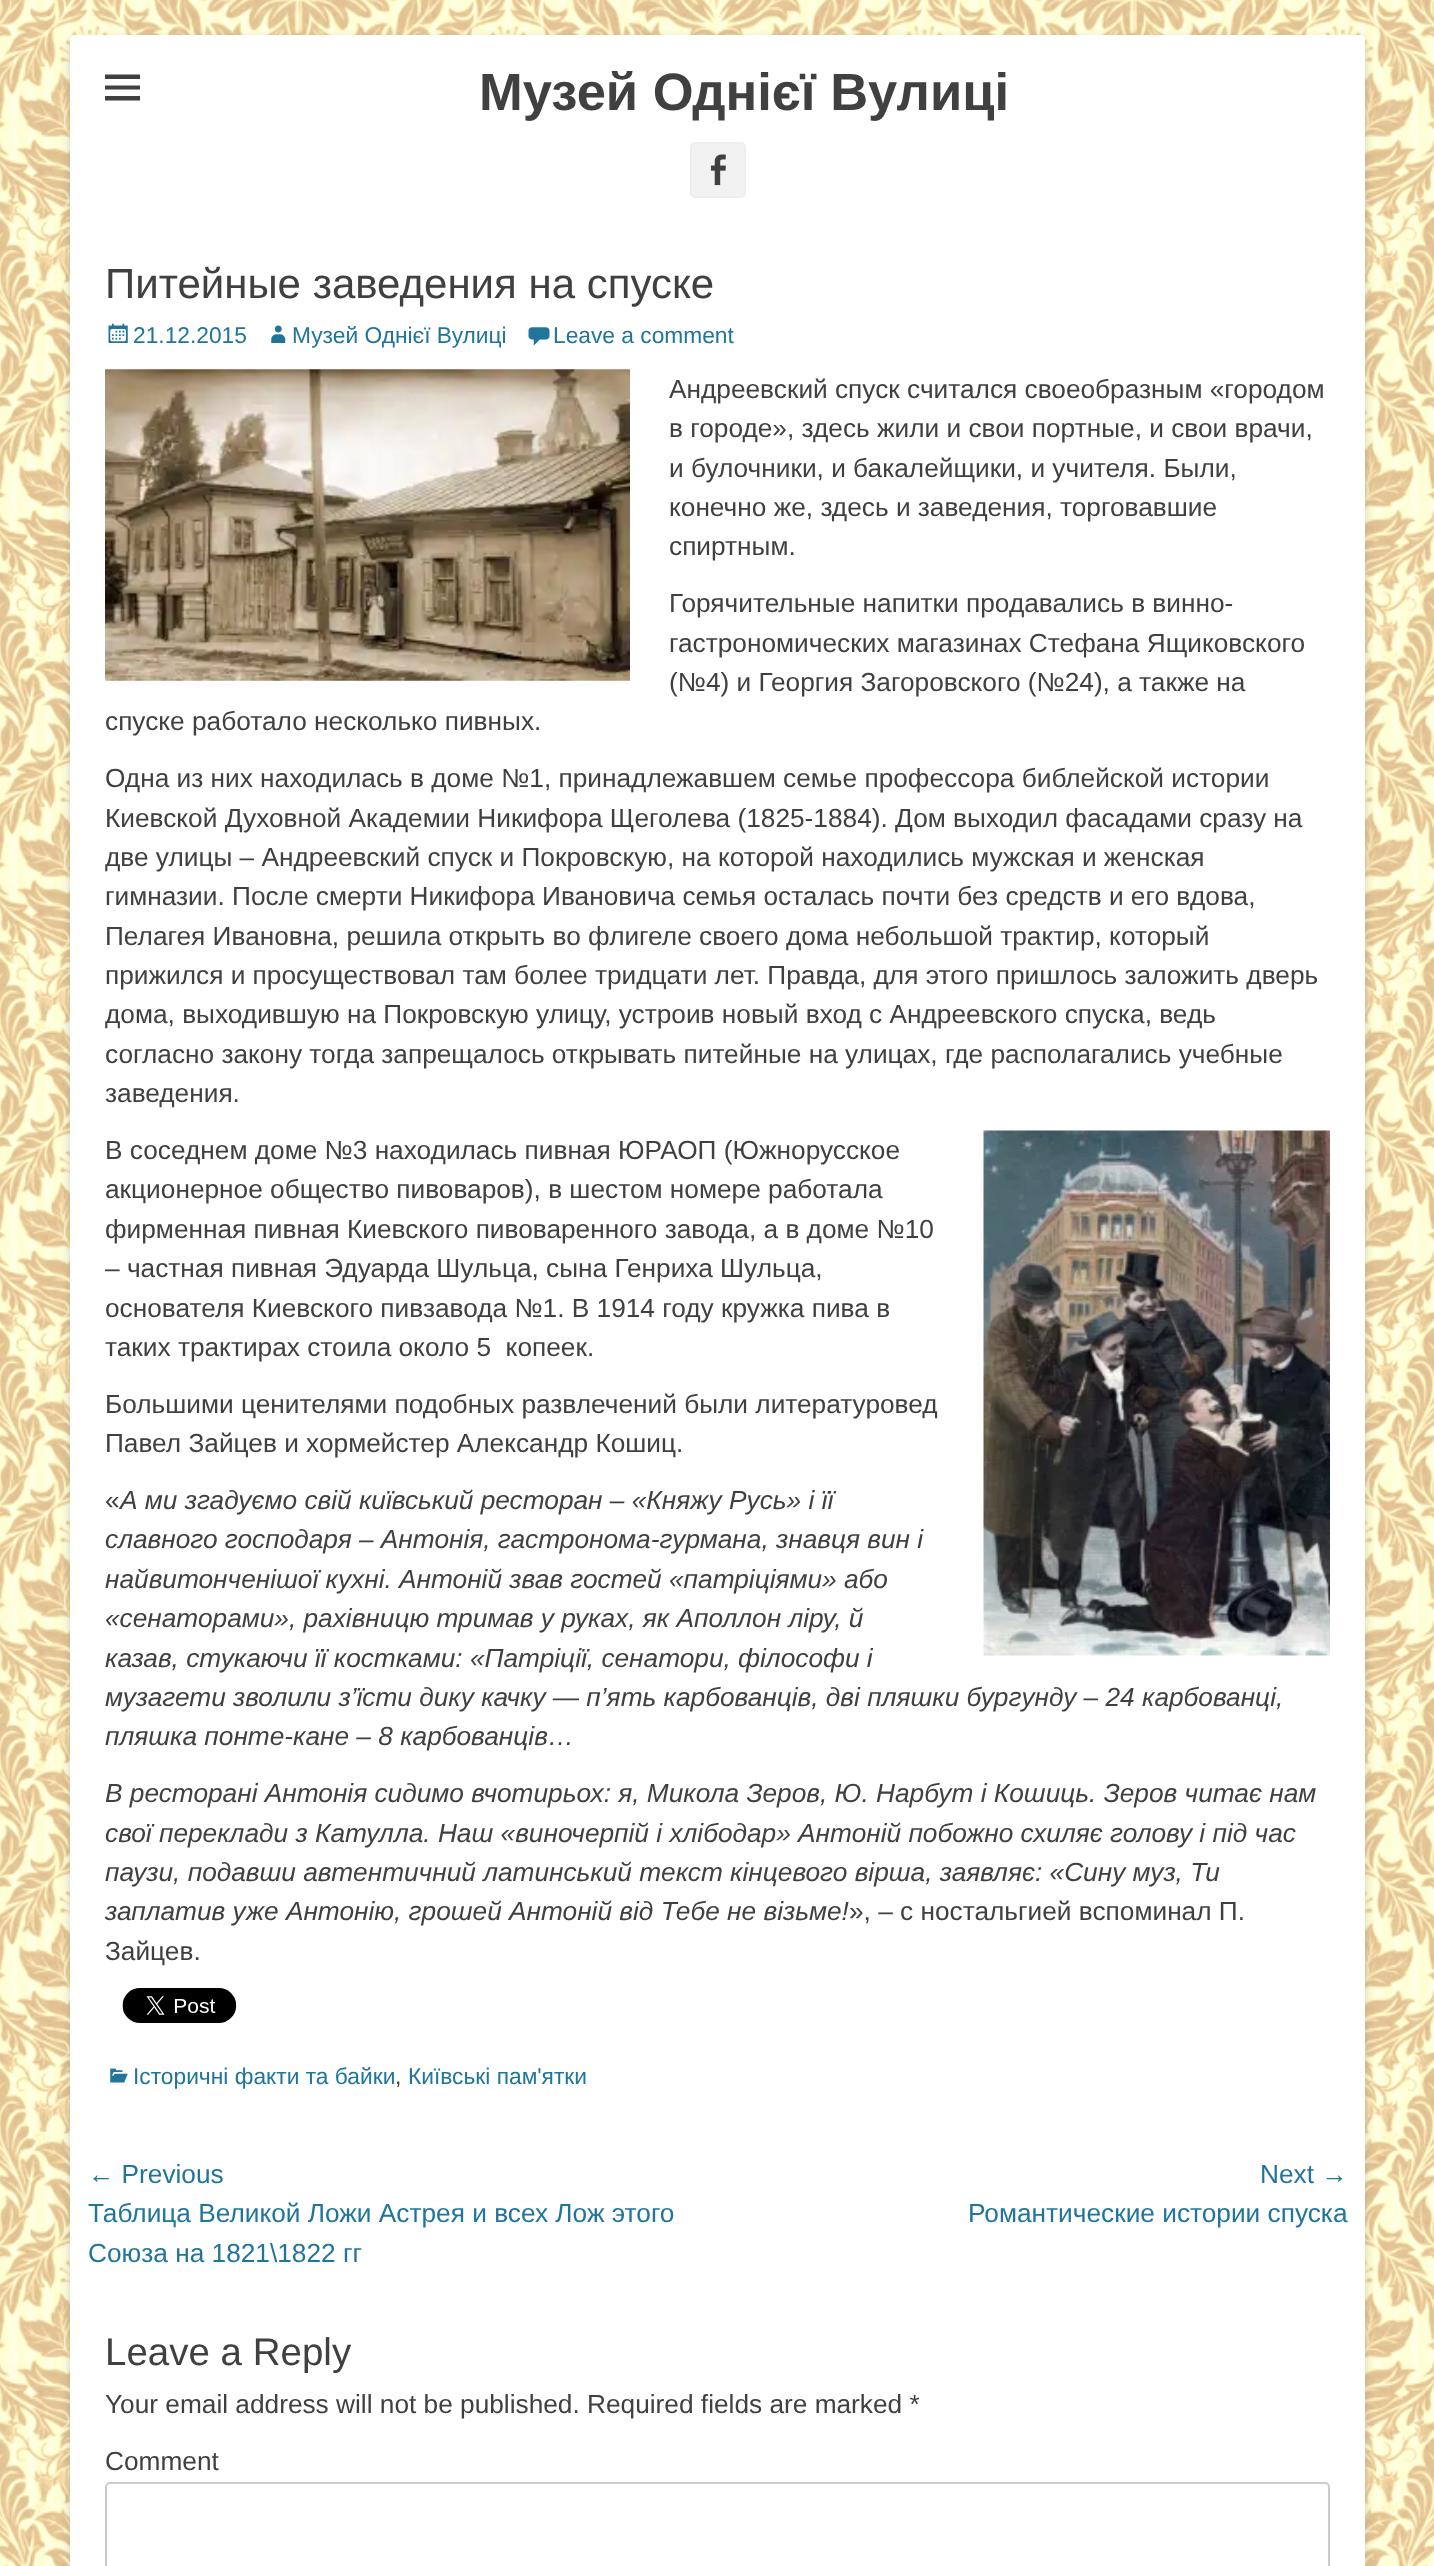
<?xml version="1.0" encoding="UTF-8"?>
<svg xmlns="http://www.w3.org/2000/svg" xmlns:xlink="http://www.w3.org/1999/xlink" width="1434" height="2566">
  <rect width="100%" height="100%" fill="#ffffff" />
  <image x="0" y="0" width="1434" height="2566" xlink:href="image1.png" />
  <rect x="70" y="39" width="1295" height="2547" rx="5" fill="#646464" fill-opacity="0.3" filter="blur(5px)" />
  <rect x="70" y="35" width="1295" height="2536" rx="5" fill="#ffffff" />
  <path d="M 105 100.5 v -4.5 h 35 v 4.5 z m 0 -26 h 35 v 4.5 h -35 z m 0 15 v -4 h 35 v 4 z" fill="#404040" />
  <rect x="691" y="143" width="54" height="54" rx="4" fill="#f2f2f2" stroke="#eeeeee" stroke-width="2" />
  <image x="710" y="154" width="16" height="32" xlink:href="image2.png" />
  <image x="108" y="323" width="20" height="20" xlink:href="image3.png" />
  <image x="271" y="325" width="15" height="18" xlink:href="image4.png" />
  <image x="528" y="327" width="22" height="19" xlink:href="image5.png" />
  <image x="105" y="369" width="525" height="312" xlink:href="image6.png" />
  <image x="983" y="1130" width="347" height="526" xlink:href="image7.png" />
  <image x="122" y="1988" width="115" height="35" xlink:href="image8.png" />
  <image x="110" y="2068" width="18" height="15" xlink:href="image9.png" />
  <rect x="106" y="2483" width="1223" height="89" rx="4" fill="none" stroke="#cccccc" stroke-width="2" />
  <text x="479" y="110" style="font-family: Liberation Sans; font-size: 52.5px; font-weight: bold; fill: #404040">Музей Однієї Вулиці</text>
  <text x="105" y="298" style="font-family: Liberation Sans; font-size: 42px; fill: #404040">Питейные заведения на спуске</text>
  <text x="133" y="343" style="font-family: Liberation Sans; font-size: 22.75px; fill: #21759b">21.12.2015</text>
  <text x="292" y="343" style="font-family: Liberation Sans; font-size: 22.75px; fill: #21759b">Музей Однієї Вулиці</text>
  <text x="553" y="343" style="font-family: Liberation Sans; font-size: 22.75px; fill: #21759b">Leave a comment</text>
  <text x="669" y="398" style="font-family: Liberation Sans; font-size: 26.25px; fill: #404040">Андреевский спуск считался своеобразным «городом</text>
  <text x="669" y="437" style="font-family: Liberation Sans; font-size: 26.25px; fill: #404040">в городе», здесь жили и свои портные, и свои врачи,</text>
  <text x="669" y="477" style="font-family: Liberation Sans; font-size: 26.25px; fill: #404040">и булочники, и бакалейщики, и учителя. Были,</text>
  <text x="669" y="516" style="font-family: Liberation Sans; font-size: 26.25px; fill: #404040">конечно же, здесь и заведения, торговавшие</text>
  <text x="669" y="555" style="font-family: Liberation Sans; font-size: 26.25px; fill: #404040">спиртным.</text>
  <text x="669" y="612" style="font-family: Liberation Sans; font-size: 26.25px; fill: #404040">Горячительные напитки продавались в винно-</text>
  <text x="669" y="652" style="font-family: Liberation Sans; font-size: 26.25px; fill: #404040">гастрономических магазинах Стефана Ящиковского</text>
  <text x="669" y="691" style="font-family: Liberation Sans; font-size: 26.25px; fill: #404040">(№4) и Георгия Загоровского (№24), а также на</text>
  <text x="105" y="730" style="font-family: Liberation Sans; font-size: 26.25px; fill: #404040">спуске работало несколько пивных.</text>
  <text x="105" y="787" style="font-family: Liberation Sans; font-size: 26.25px; fill: #404040">Одна из них находилась в доме №1, принадлежавшем семье профессора библейской истории</text>
  <text x="105" y="827" style="font-family: Liberation Sans; font-size: 26.25px; fill: #404040">Киевской Духовной Академии Никифора Щеголева (1825-1884). Дом выходил фасадами сразу на</text>
  <text x="105" y="866" style="font-family: Liberation Sans; font-size: 26.25px; fill: #404040">две улицы – Андреевский спуск и Покровскую, на которой находились мужская и женская</text>
  <text x="105" y="905" style="font-family: Liberation Sans; font-size: 26.25px; fill: #404040">гимназии. После смерти Никифора Ивановича семья осталась почти без средств и его вдова,</text>
  <text x="105" y="945" style="font-family: Liberation Sans; font-size: 26.25px; fill: #404040">Пелагея Ивановна, решила открыть во флигеле своего дома небольшой трактир, который</text>
  <text x="105" y="984" style="font-family: Liberation Sans; font-size: 26.25px; fill: #404040">прижился и просуществовал там более тридцати лет. Правда, для этого пришлось заложить дверь</text>
  <text x="105" y="1023" style="font-family: Liberation Sans; font-size: 26.25px; fill: #404040">дома, выходившую на Покровскую улицу, устроив новый вход с Андреевского спуска, ведь</text>
  <text x="105" y="1063" style="font-family: Liberation Sans; font-size: 26.25px; fill: #404040">согласно закону тогда запрещалось открывать питейные на улицах, где располагались учебные</text>
  <text x="105" y="1102" style="font-family: Liberation Sans; font-size: 26.25px; fill: #404040">заведения.</text>
  <text x="105" y="1159" style="font-family: Liberation Sans; font-size: 26.25px; fill: #404040">В соседнем доме №3 находилась пивная ЮРАОП (Южнорусское</text>
  <text x="105" y="1198" style="font-family: Liberation Sans; font-size: 26.25px; fill: #404040">акционерное общество пивоваров), в шестом номере работала</text>
  <text x="105" y="1238" style="font-family: Liberation Sans; font-size: 26.25px; fill: #404040">фирменная пивная Киевского пивоваренного завода, а в доме №10</text>
  <text x="105" y="1277" style="font-family: Liberation Sans; font-size: 26.25px; fill: #404040">– частная пивная Эдуарда Шульца, сына Генриха Шульца,</text>
  <text x="105" y="1317" style="font-family: Liberation Sans; font-size: 26.25px; fill: #404040">основателя Киевского пивзавода №1. В 1914 году кружка пива в</text>
  <text x="105" y="1356" style="font-family: Liberation Sans; font-size: 26.25px; fill: #404040" xml:space="preserve">таких трактирах стоила около 5  копеек.</text>
  <text x="105" y="1413" style="font-family: Liberation Sans; font-size: 26.25px; fill: #404040">Большими ценителями подобных развлечений были литературовед</text>
  <text x="105" y="1452" style="font-family: Liberation Sans; font-size: 26.25px; fill: #404040">Павел Зайцев и хормейстер Александр Кошиц.</text>
  <text x="105" y="1509" style="font-family: Liberation Sans; font-size: 26.25px; fill: #404040">«</text>
  <text x="120" y="1509" style="font-family: Liberation Sans; font-size: 26.25px; font-style: italic; fill: #404040">А ми згадуємо свій київський ресторан – «Княжу Русь» і її</text>
  <text x="105" y="1548" style="font-family: Liberation Sans; font-size: 26.25px; font-style: italic; fill: #404040">славного господаря – Антонія, гастронома-гурмана, знавця вин і</text>
  <text x="105" y="1588" style="font-family: Liberation Sans; font-size: 26.25px; font-style: italic; fill: #404040">найвитонченішої кухні. Антоній звав гостей «патріціями» або</text>
  <text x="105" y="1627" style="font-family: Liberation Sans; font-size: 26.25px; font-style: italic; fill: #404040">«сенаторами», рахівницю тримав у руках, як Аполлон ліру, й</text>
  <text x="105" y="1667" style="font-family: Liberation Sans; font-size: 26.25px; font-style: italic; fill: #404040">казав, стукаючи її костками: «Патріції, сенатори, філософи і</text>
  <text x="105" y="1706" style="font-family: Liberation Sans; font-size: 26.25px; font-style: italic; fill: #404040">музагети зволили з’їсти дику качку — п’ять карбованців, дві пляшки бургунду – 24 карбованці,</text>
  <text x="105" y="1745" style="font-family: Liberation Sans; font-size: 26.25px; font-style: italic; fill: #404040">пляшка понте-кане – 8 карбованців…</text>
  <text x="105" y="1802" style="font-family: Liberation Sans; font-size: 26.25px; font-style: italic; fill: #404040">В ресторані Антонія сидимо вчотирьох: я, Микола Зеров, Ю. Нарбут і Кошиць. Зеров читає нам</text>
  <text x="105" y="1842" style="font-family: Liberation Sans; font-size: 26.25px; font-style: italic; fill: #404040">свої переклади з Катулла. Наш «виночерпій і хлібодар» Антоній побожно схиляє голову і під час</text>
  <text x="105" y="1881" style="font-family: Liberation Sans; font-size: 26.25px; font-style: italic; fill: #404040">паузи, подавши автентичний латинський текст кінцевого вірша, заявляє: «Сину муз, Ти</text>
  <text x="105" y="1920" style="font-family: Liberation Sans; font-size: 26.25px; font-style: italic; fill: #404040">заплатив уже Антонію, грошей Антоній від Тебе не візьме!</text>
  <text x="849" y="1920" style="font-family: Liberation Sans; font-size: 26.25px; fill: #404040">», – с ностальгией вспоминал П.</text>
  <text x="105" y="1960" style="font-family: Liberation Sans; font-size: 26.25px; fill: #404040">Зайцев.</text>
  <text x="133" y="2084" style="font-family: Liberation Sans; font-size: 22.75px; fill: #21759b">Історичні факти та байки</text>
  <text x="395" y="2084" style="font-family: Liberation Sans; font-size: 22.75px; fill: #404040">,</text>
  <text x="408" y="2084" style="font-family: Liberation Sans; font-size: 22.75px; fill: #21759b">Київські пам'ятки</text>
  <text x="88" y="2183" style="font-family: Liberation Sans; font-size: 26.25px; fill: #21759b">← Previous</text>
  <text x="88" y="2222" style="font-family: Liberation Sans; font-size: 26.25px; fill: #21759b">Таблица Великой Ложи Астрея и всех Лож этого</text>
  <text x="88" y="2262" style="font-family: Liberation Sans; font-size: 26.25px; fill: #21759b">Союза на 1821\1822 гг</text>
  <text x="1260" y="2183" style="font-family: Liberation Sans; font-size: 26.25px; fill: #21759b">Next →</text>
  <text x="968" y="2222" style="font-family: Liberation Sans; font-size: 26.25px; fill: #21759b">Романтические истории спуска</text>
  <text x="105" y="2365" style="font-family: Liberation Sans; font-size: 38.5px; fill: #404040">Leave a Reply</text>
  <text x="105" y="2413" style="font-family: Liberation Sans; font-size: 26.25px; fill: #404040">Your email address will not be published. Required fields are marked *</text>
  <text x="105" y="2470" style="font-family: Liberation Sans; font-size: 26.25px; fill: #404040">Comment</text>
</svg>
